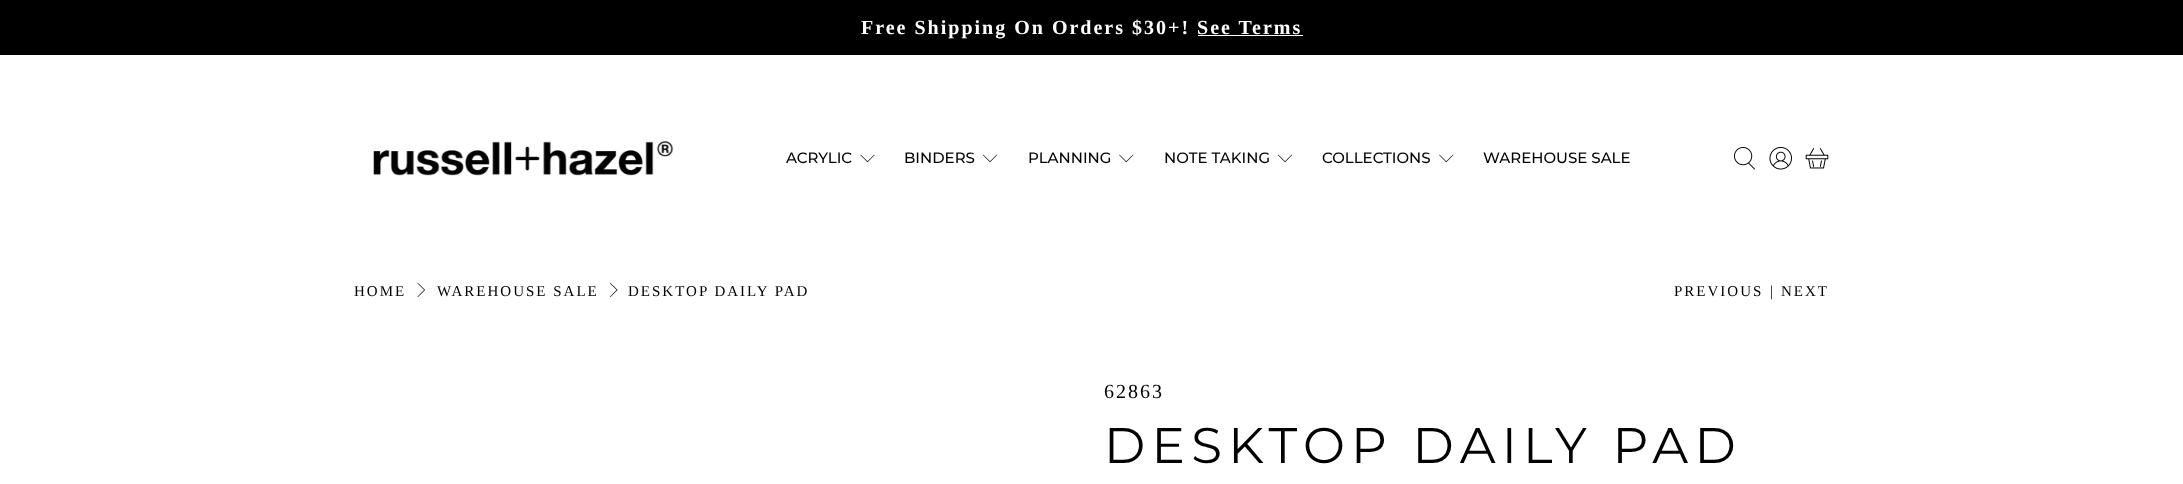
<?xml version="1.0" encoding="UTF-8"?>
<svg xmlns="http://www.w3.org/2000/svg" xmlns:xlink="http://www.w3.org/1999/xlink" width="2183" height="484">
  <rect width="100%" height="100%" fill="#ffffff" />
  <rect width="2183" height="55" fill="#000000" />
  <rect x="1198" y="35" width="105" height="1" fill="#ffffff" />
  <image x="373" y="141" width="301" height="35" xlink:href="image1.png" />
  <image x="860" y="154" width="15" height="9" xlink:href="image2.png" />
  <image x="983" y="154" width="14" height="9" xlink:href="image3.png" />
  <image x="1119" y="154" width="15" height="9" xlink:href="image4.png" />
  <image x="1278" y="154" width="14" height="9" xlink:href="image3.png" />
  <image x="1439" y="154" width="15" height="9" xlink:href="image4.png" />
  <image x="1734" y="147" width="21" height="23" xlink:href="image5.png" />
  <image x="1769" y="147" width="23" height="23" xlink:href="image6.png" />
  <image x="1805" y="148" width="24" height="21" xlink:href="image7.png" />
  <image x="417" y="283" width="8" height="14" xlink:href="image8.png" />
  <image x="610" y="283" width="8" height="14" xlink:href="image9.png" />
  <text x="861" y="34" style="font-family: Liberation Serif; font-size: 20px; font-weight: bold; letter-spacing: 2px; fill: #ffffff">Free Shipping On Orders $30+! See Terms</text>
  <text x="786" y="163" style="font-family: Montserrat; font-size: 15px; font-weight: 500; fill: #000000">ACRYLIC</text>
  <text x="904" y="163" style="font-family: Montserrat; font-size: 15px; font-weight: 500; fill: #000000">BINDERS</text>
  <text x="1028" y="163" style="font-family: Montserrat; font-size: 15px; font-weight: 500; fill: #000000">PLANNING</text>
  <text x="1164" y="163" style="font-family: Montserrat; font-size: 15px; font-weight: 500; fill: #000000">NOTE TAKING</text>
  <text x="1322" y="163" style="font-family: Montserrat; font-size: 15px; font-weight: 500; fill: #000000">COLLECTIONS</text>
  <text x="1483" y="163" style="font-family: Montserrat; font-size: 15px; font-weight: 500; fill: #000000">WAREHOUSE SALE</text>
  <text x="354" y="296" style="font-family: Liberation Serif; font-size: 15px; letter-spacing: 2px; fill: #000000">HOME</text>
  <text x="437" y="296" style="font-family: Liberation Serif; font-size: 15px; letter-spacing: 2px; fill: #000000">WAREHOUSE SALE</text>
  <text x="628" y="296" style="font-family: Liberation Serif; font-size: 15px; letter-spacing: 2px; fill: #000000">DESKTOP DAILY PAD</text>
  <text x="1674" y="296" style="font-family: Liberation Serif; font-size: 15px; letter-spacing: 2px; fill: #000000">PREVIOUS</text>
  <text x="1770" y="296" style="font-family: Liberation Serif; font-size: 15px; letter-spacing: 2px; fill: #000000">|</text>
  <text x="1781" y="296" style="font-family: Liberation Serif; font-size: 15px; letter-spacing: 2px; fill: #000000">NEXT</text>
  <text x="1104" y="398" style="font-family: Liberation Serif; font-size: 20px; letter-spacing: 2px; fill: #000000">62863</text>
  <text x="1104" y="463" style="font-family: Montserrat; font-size: 50px; letter-spacing: 6.25px; fill: #000000">DESKTOP DAILY PAD</text>
</svg>
